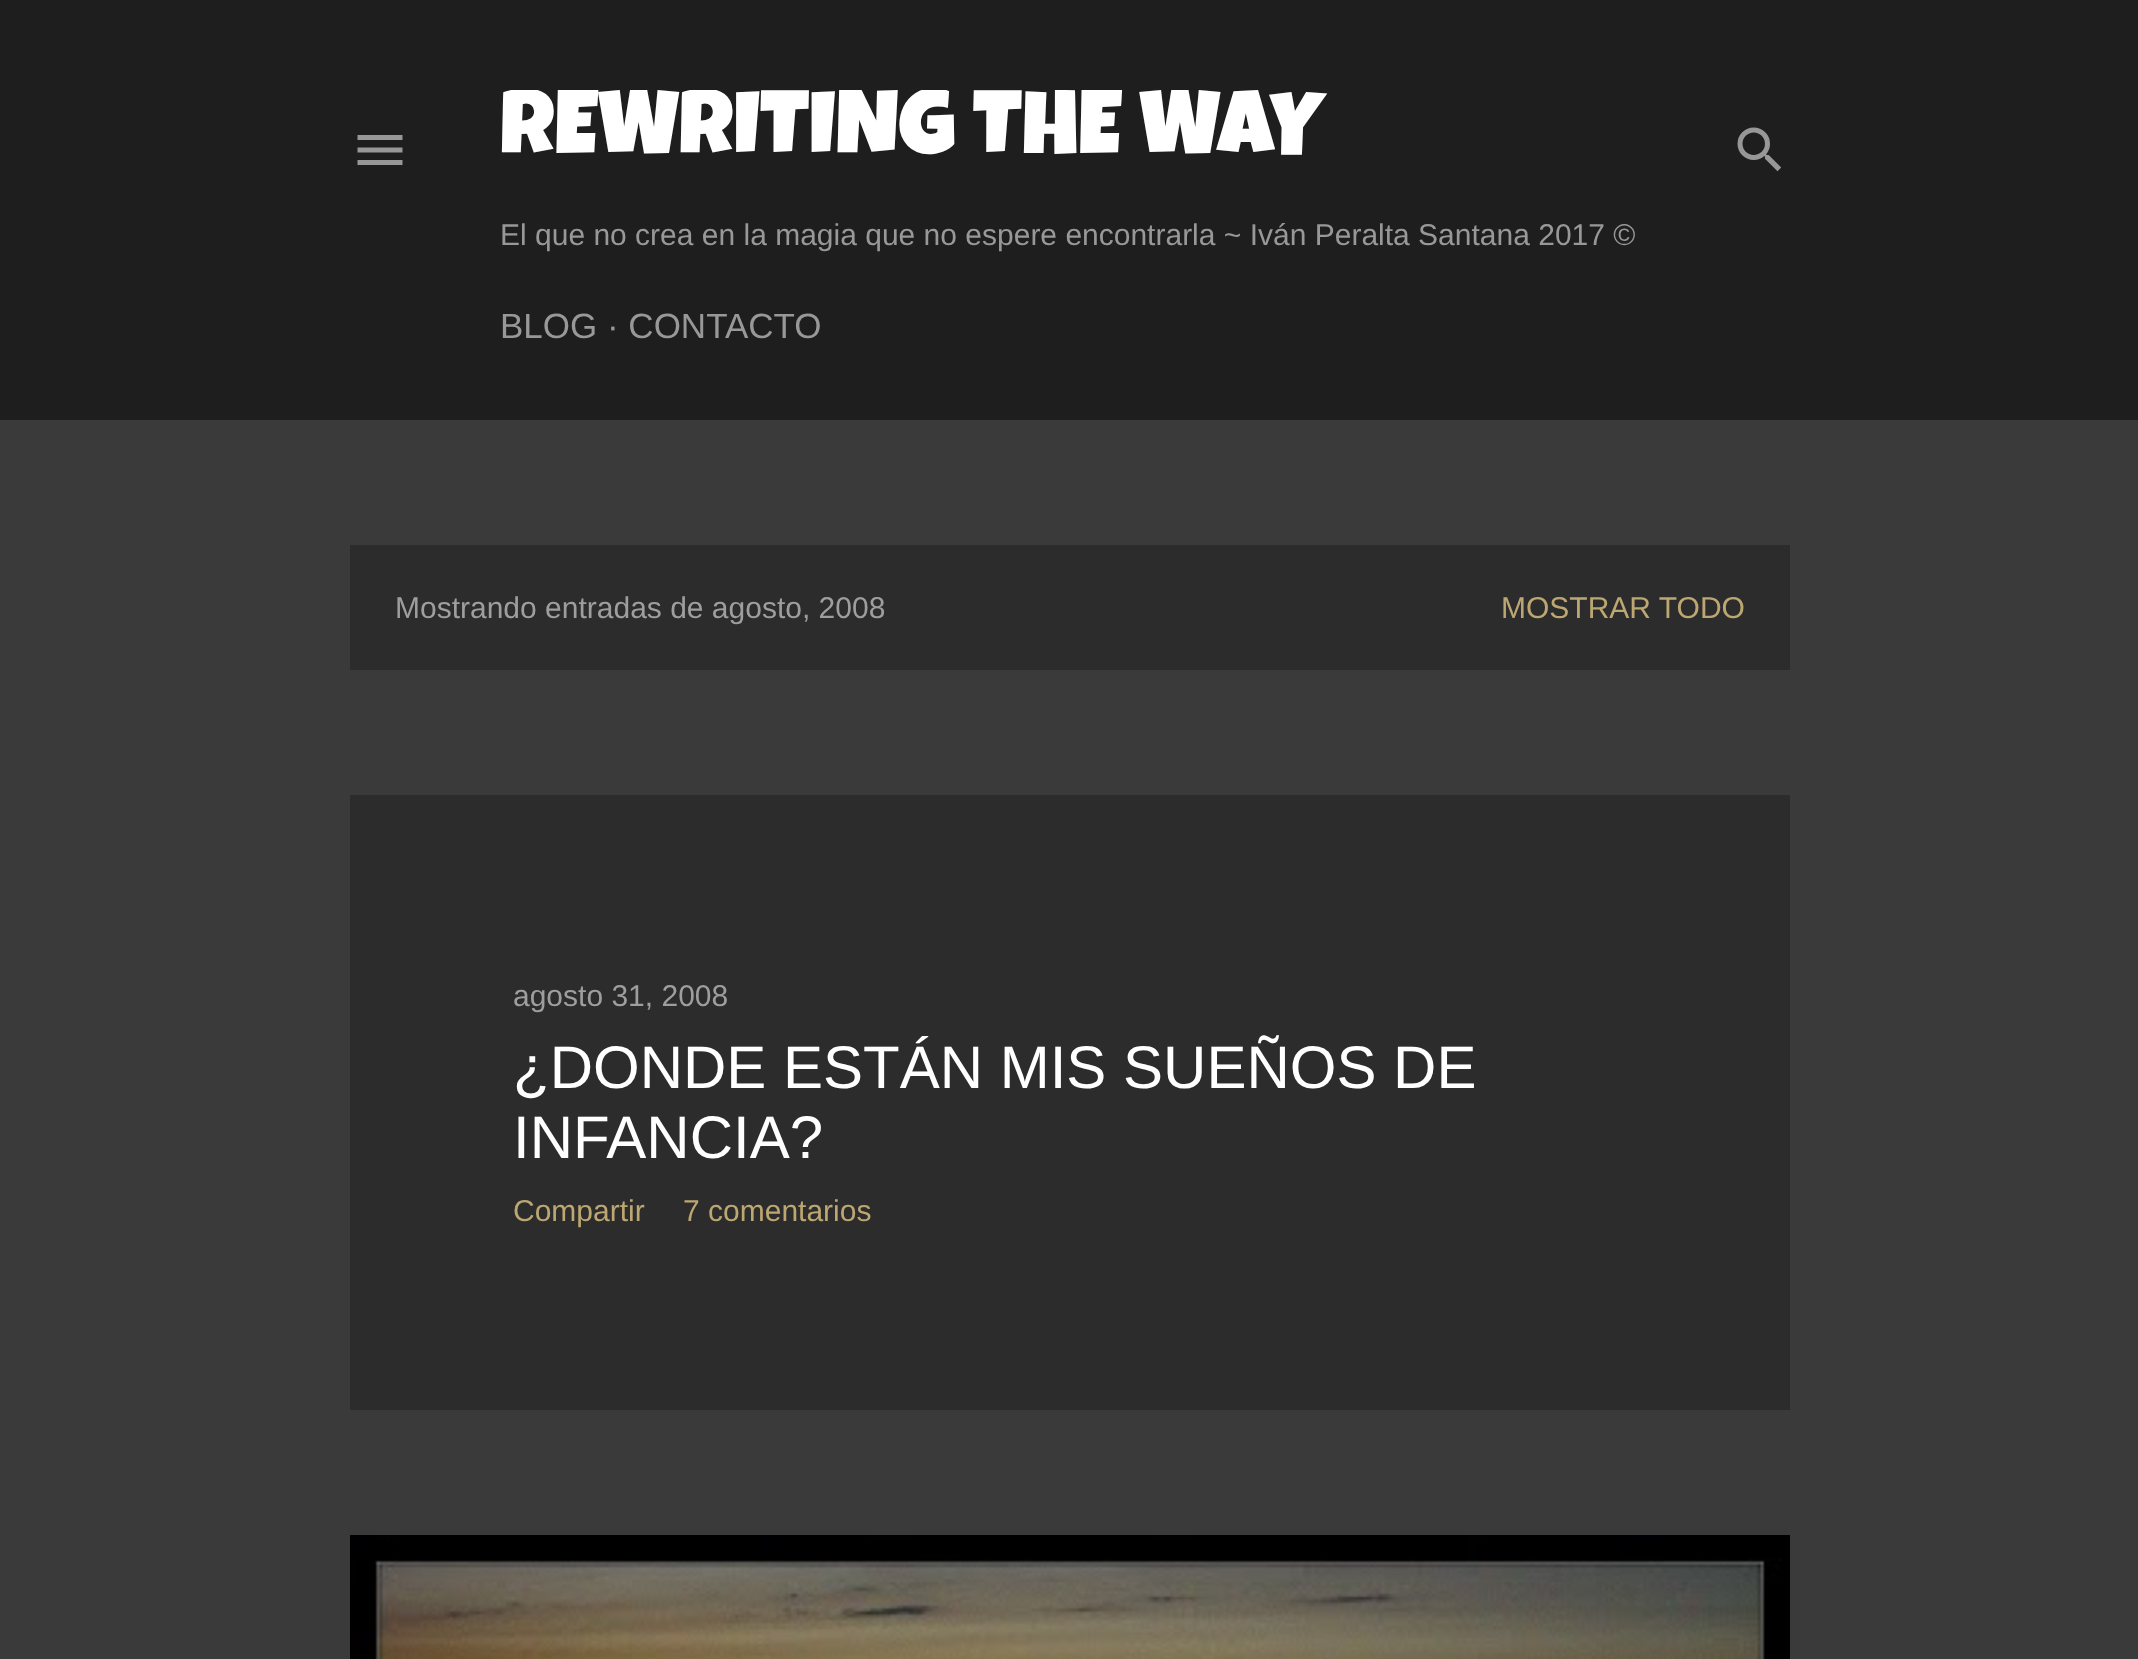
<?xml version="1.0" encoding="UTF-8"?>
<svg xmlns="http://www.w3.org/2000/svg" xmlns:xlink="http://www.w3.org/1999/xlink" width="2138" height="1659">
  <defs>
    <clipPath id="clip1"><rect x="500" y="90" width="1140" height="270" /></clipPath>
  </defs>
  <rect width="100%" height="100%" fill="#3a3a3a" />
  <rect width="2138" height="420" fill="#1e1e1e" />
  <image x="357" y="135" width="46" height="30" xlink:href="image1.png" />
  <image x="1737" y="127" width="44" height="45" xlink:href="image2.png" />
  <rect x="350" y="545" width="1440" height="125" fill="#2c2c2c" />
  <rect x="350" y="795" width="1440" height="615" fill="#2c2c2c" />
  <image x="350" y="1535" width="1440" height="124" xlink:href="image3.png" />
  <g clip-path="url(#clip1)">
    <text x="500" y="153" style="font-family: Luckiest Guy; font-size: 90px; fill: #ffffff">REWRITING THE WAY</text>
  </g>
  <text x="500" y="245" style="font-family: Liberation Sans; font-size: 30px; fill: #989898">El que no crea en la magia que no espere encontrarla ~ Iván Peralta Santana 2017 ©</text>
  <text x="500" y="338" style="font-family: Liberation Sans; font-size: 35px; fill: #989898">BLOG · CONTACTO</text>
  <text x="395" y="618" style="font-family: Liberation Sans; font-size: 30px; fill: #9e9e9e">Mostrando entradas de agosto, 2008</text>
  <text x="1501" y="618" style="font-family: Liberation Sans; font-size: 30px; fill: #bca772">MOSTRAR TODO</text>
  <text x="513" y="1006" style="font-family: Liberation Sans; font-size: 30px; fill: #9e9e9e">agosto 31, 2008</text>
  <text x="513" y="1088" style="font-family: Liberation Sans; font-size: 60px; fill: #ffffff">¿DONDE ESTÁN MIS SUEÑOS DE</text>
  <text x="513" y="1158" style="font-family: Liberation Sans; font-size: 60px; fill: #ffffff">INFANCIA?</text>
  <text x="513" y="1221" style="font-family: Liberation Sans; font-size: 30px; fill: #bca772">Compartir</text>
  <text x="683" y="1221" style="font-family: Liberation Sans; font-size: 30px; fill: #bca772">7 comentarios</text>
</svg>
